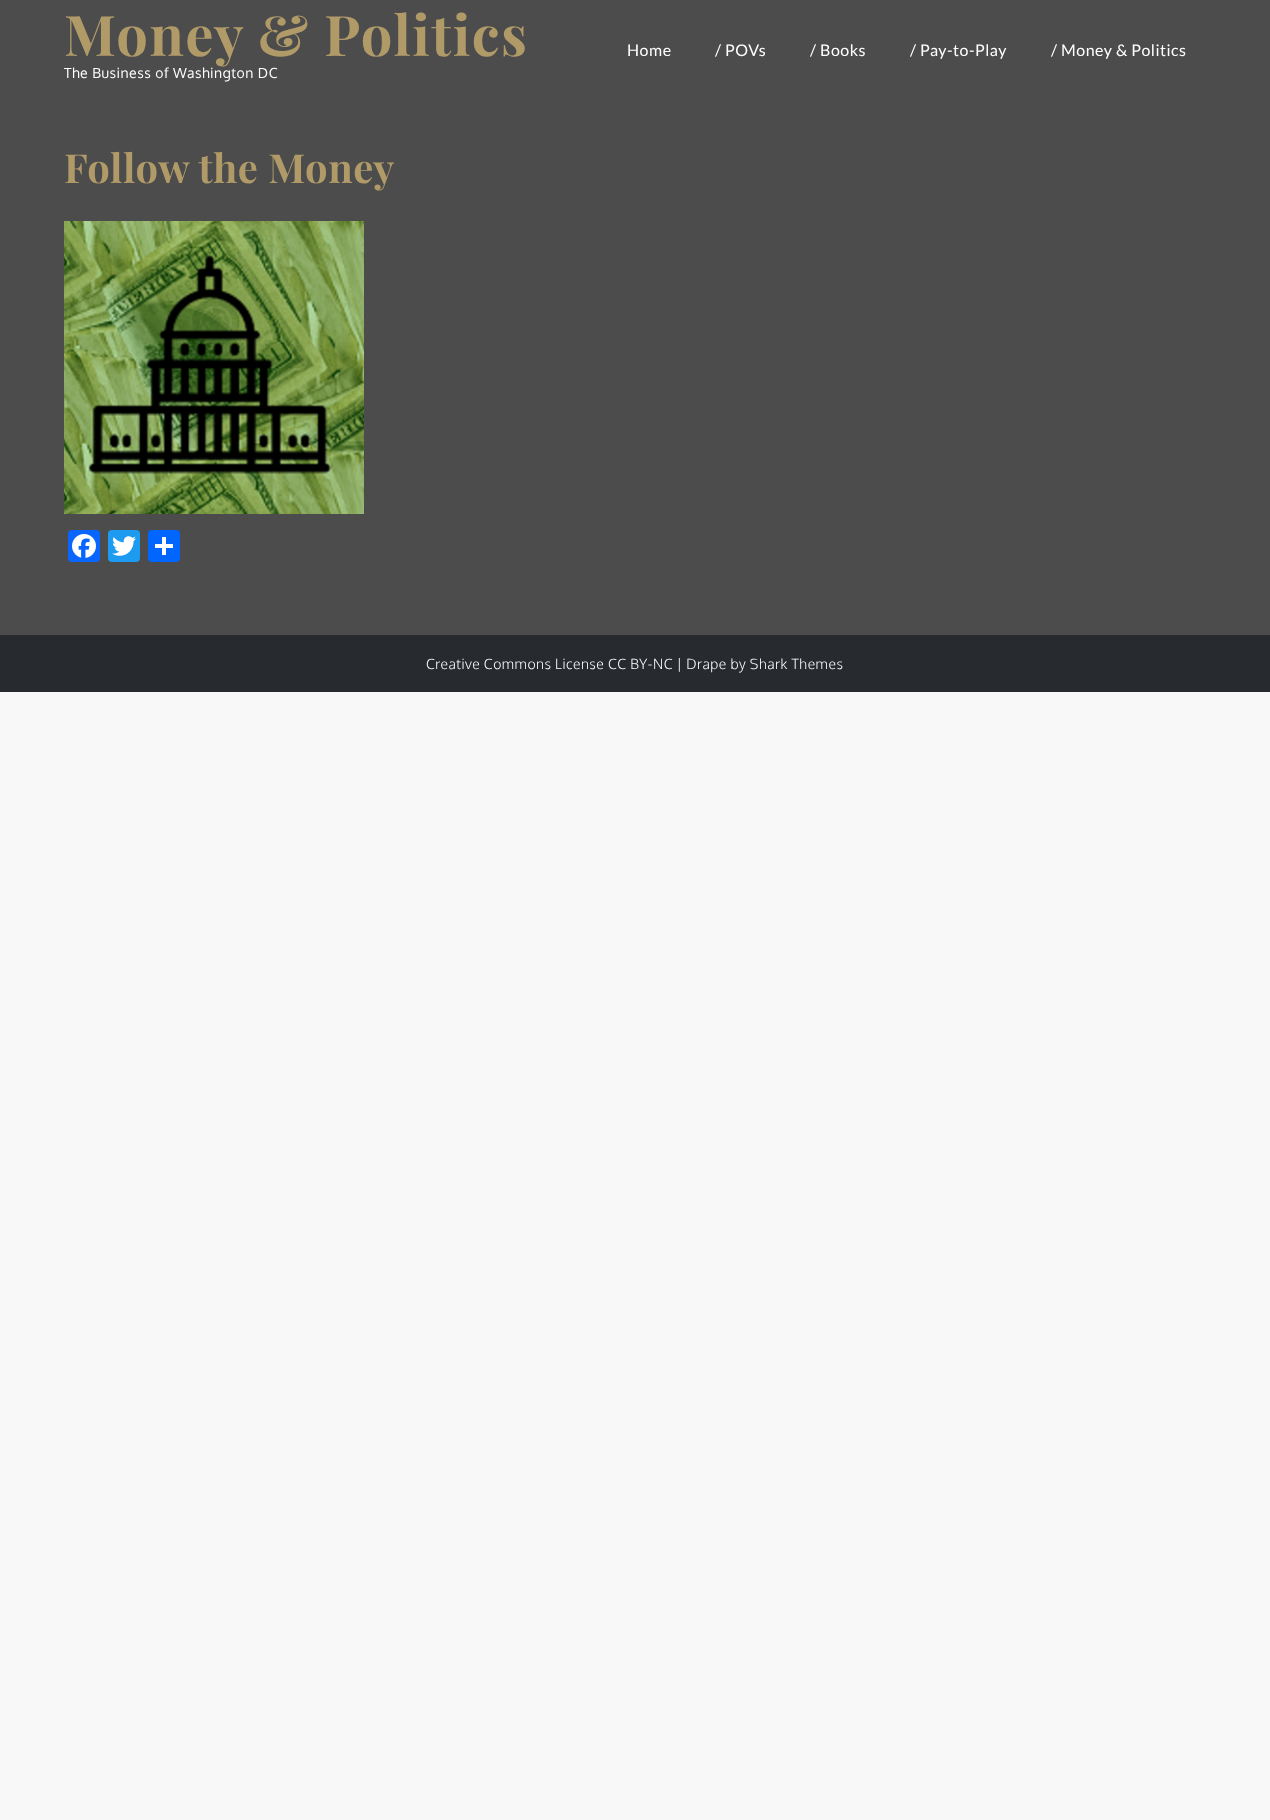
<?xml version="1.0" encoding="UTF-8"?>
<svg xmlns="http://www.w3.org/2000/svg" xmlns:xlink="http://www.w3.org/1999/xlink" width="1270" height="1820">
  <rect width="100%" height="100%" fill="#f8f8f8" />
  <rect width="1270" height="635" fill="#4c4c4c" />
  <image x="64" y="221" width="300" height="293" xlink:href="image1.png" />
  <rect x="68" y="530" width="32" height="32" rx="4" fill="#0866ff" />
  <image x="72" y="534" width="24" height="24" xlink:href="image2.png" />
  <rect x="108" y="530" width="32" height="32" rx="4" fill="#1d9bf0" />
  <image x="112" y="536" width="24" height="20" xlink:href="image3.png" />
  <rect x="148" y="530" width="32" height="32" rx="4" fill="#0166ff" />
  <rect x="162" y="537" width="4" height="18" fill="#ffffff" />
  <rect x="155" y="544" width="18" height="4" fill="#ffffff" />
  <rect y="635" width="1270" height="57" fill="#272b2f" />
  <text x="64" y="56" style="font-family: Playfair Display; font-size: 56px; font-weight: bold; letter-spacing: 1.5px; fill: #b09a68">Money &amp; Politics</text>
  <text x="64" y="78" style="font-family: Oxygen; font-size: 14px; letter-spacing: 0.5px; fill: #ffffff">The Business of Washington DC</text>
  <text x="627" y="56" style="font-family: Lato; font-size: 16px; letter-spacing: 0.5px; fill: #ffffff">Home</text>
  <text x="715" y="56" style="font-family: Lato; font-size: 16px; letter-spacing: 0.5px; fill: #ffffff">/ POVs</text>
  <text x="810" y="56" style="font-family: Lato; font-size: 16px; letter-spacing: 0.5px; fill: #ffffff">/ Books</text>
  <text x="910" y="56" style="font-family: Lato; font-size: 16px; letter-spacing: 0.5px; fill: #ffffff">/ Pay-to-Play</text>
  <text x="1051" y="56" style="font-family: Lato; font-size: 16px; letter-spacing: 0.5px; fill: #ffffff">/ Money &amp; Politics</text>
  <text x="64" y="183" style="font-family: Playfair Display; font-size: 40px; font-weight: bold; letter-spacing: 0.5px; fill: #b09a68">Follow the Money</text>
  <text x="426" y="669" style="font-family: Oxygen; font-size: 14px; font-weight: 300; letter-spacing: 0.5px; fill: #ffffff">Creative Commons License CC BY-NC | Drape by Shark Themes</text>
</svg>
